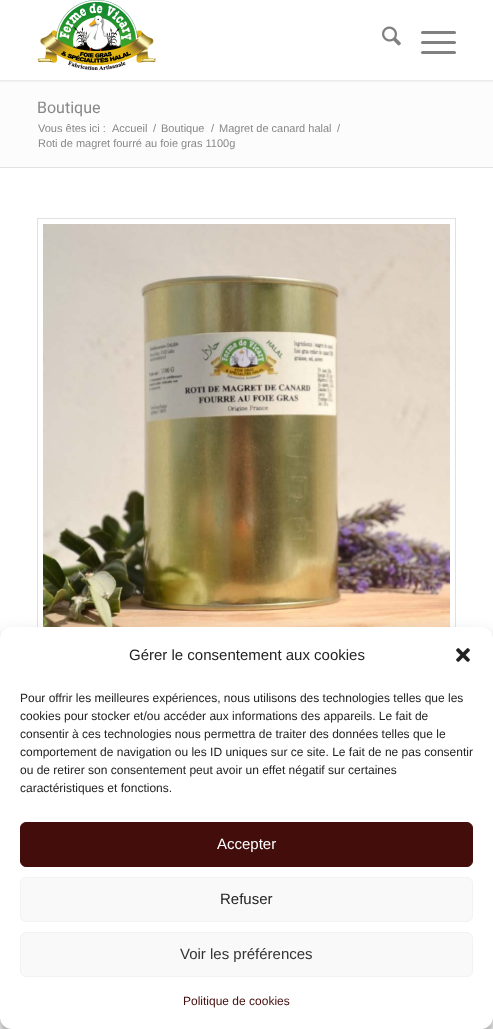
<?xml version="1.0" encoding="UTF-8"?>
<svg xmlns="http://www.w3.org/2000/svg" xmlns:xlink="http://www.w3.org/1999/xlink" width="493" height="1029">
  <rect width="100%" height="100%" fill="#ffffff" />
  <rect y="80" width="493" height="87" fill="#fcfcfc" />
  <rect x="-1" y="-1" width="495" height="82" fill="#000000" fill-opacity="0.1" filter="blur(1px)" />
  <rect width="493" height="80" fill="#ffffff" />
  <image x="37" y="0" width="119" height="70" xlink:href="image1.png" />
  <image x="382" y="26" width="19" height="20" xlink:href="image2.png" />
  <rect x="421" y="41" width="35" height="3" rx="1.5" fill="#808080" />
  <rect x="421" y="31" width="35" height="3" rx="1.5" fill="#808080" />
  <rect x="421" y="51" width="35" height="3" rx="1.5" fill="#808080" />
  <rect y="167" width="493" height="1" fill="#e1e1e1" />
  <rect x="37.5" y="218.5" width="418" height="418" fill="none" stroke="#e1e1e1" />
  <image x="43" y="224" width="407" height="403" xlink:href="image3.png" />
  <rect y="633" width="493" height="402" rx="12" fill="#000000" fill-opacity="0.23" filter="blur(3px)" />
  <rect y="637" width="493" height="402" rx="12" fill="#000000" fill-opacity="0.19" filter="blur(10px)" />
  <rect y="627" width="493" height="402" rx="12" fill="#ffffff" />
  <image x="456" y="648" width="14" height="14" xlink:href="image4.png" />
  <rect x="20.5" y="822.5" width="452" height="44" rx="5.5" fill="#430d0b" stroke="#430d0b" />
  <rect x="20.5" y="877.5" width="452" height="44" rx="5.5" fill="#f9f9f9" stroke="#f2f2f2" />
  <rect x="20.5" y="932.5" width="452" height="44" rx="5.5" fill="#f9f9f9" stroke="#f2f2f2" />
  <text x="37" y="113" style="font-family: Roboto; font-size: 16px; fill: #888888">Boutique</text>
  <text x="38" y="132" style="font-family: Liberation Sans; font-size: 11px; fill: #888888">Vous êtes ici :</text>
  <text x="112" y="132" style="font-family: Liberation Sans; font-size: 11px; fill: #888888">Accueil</text>
  <text x="153" y="132" style="font-family: Liberation Sans; font-size: 11px; fill: #888888">/</text>
  <text x="161" y="132" style="font-family: Liberation Sans; font-size: 11px; fill: #888888">Boutique</text>
  <text x="211" y="132" style="font-family: Liberation Sans; font-size: 11px; fill: #888888">/</text>
  <text x="219" y="132" style="font-family: Liberation Sans; font-size: 11px; fill: #888888">Magret de canard halal</text>
  <text x="337" y="132" style="font-family: Liberation Sans; font-size: 11px; fill: #888888">/</text>
  <text x="38" y="147" style="font-family: Liberation Sans; font-size: 11px; fill: #888888">Roti de magret fourré au foie gras 1100g</text>
  <text x="129" y="660" style="font-family: Liberation Sans; font-size: 15px; fill: #222222">Gérer le consentement aux cookies</text>
  <text x="20" y="702" style="font-family: Liberation Sans; font-size: 12px; fill: #222222">Pour offrir les meilleures expériences, nous utilisons des technologies telles que les</text>
  <text x="20" y="720" style="font-family: Liberation Sans; font-size: 12px; fill: #222222">cookies pour stocker et/ou accéder aux informations des appareils. Le fait de</text>
  <text x="20" y="738" style="font-family: Liberation Sans; font-size: 12px; fill: #222222">consentir à ces technologies nous permettra de traiter des données telles que le</text>
  <text x="20" y="756" style="font-family: Liberation Sans; font-size: 12px; fill: #222222">comportement de navigation ou les ID uniques sur ce site. Le fait de ne pas consentir</text>
  <text x="20" y="774" style="font-family: Liberation Sans; font-size: 12px; fill: #222222">ou de retirer son consentement peut avoir un effet négatif sur certaines</text>
  <text x="20" y="792" style="font-family: Liberation Sans; font-size: 12px; fill: #222222">caractéristiques et fonctions.</text>
  <text x="217" y="849" style="font-family: Liberation Sans; font-size: 15px; fill: #ffffff">Accepter</text>
  <text x="220" y="904" style="font-family: Liberation Sans; font-size: 15px; fill: #222222">Refuser</text>
  <text x="180" y="959" style="font-family: Liberation Sans; font-size: 15px; fill: #333333">Voir les préférences</text>
  <text x="183" y="1005" style="font-family: Liberation Sans; font-size: 12px; fill: #430d0b">Politique de cookies</text>
</svg>
